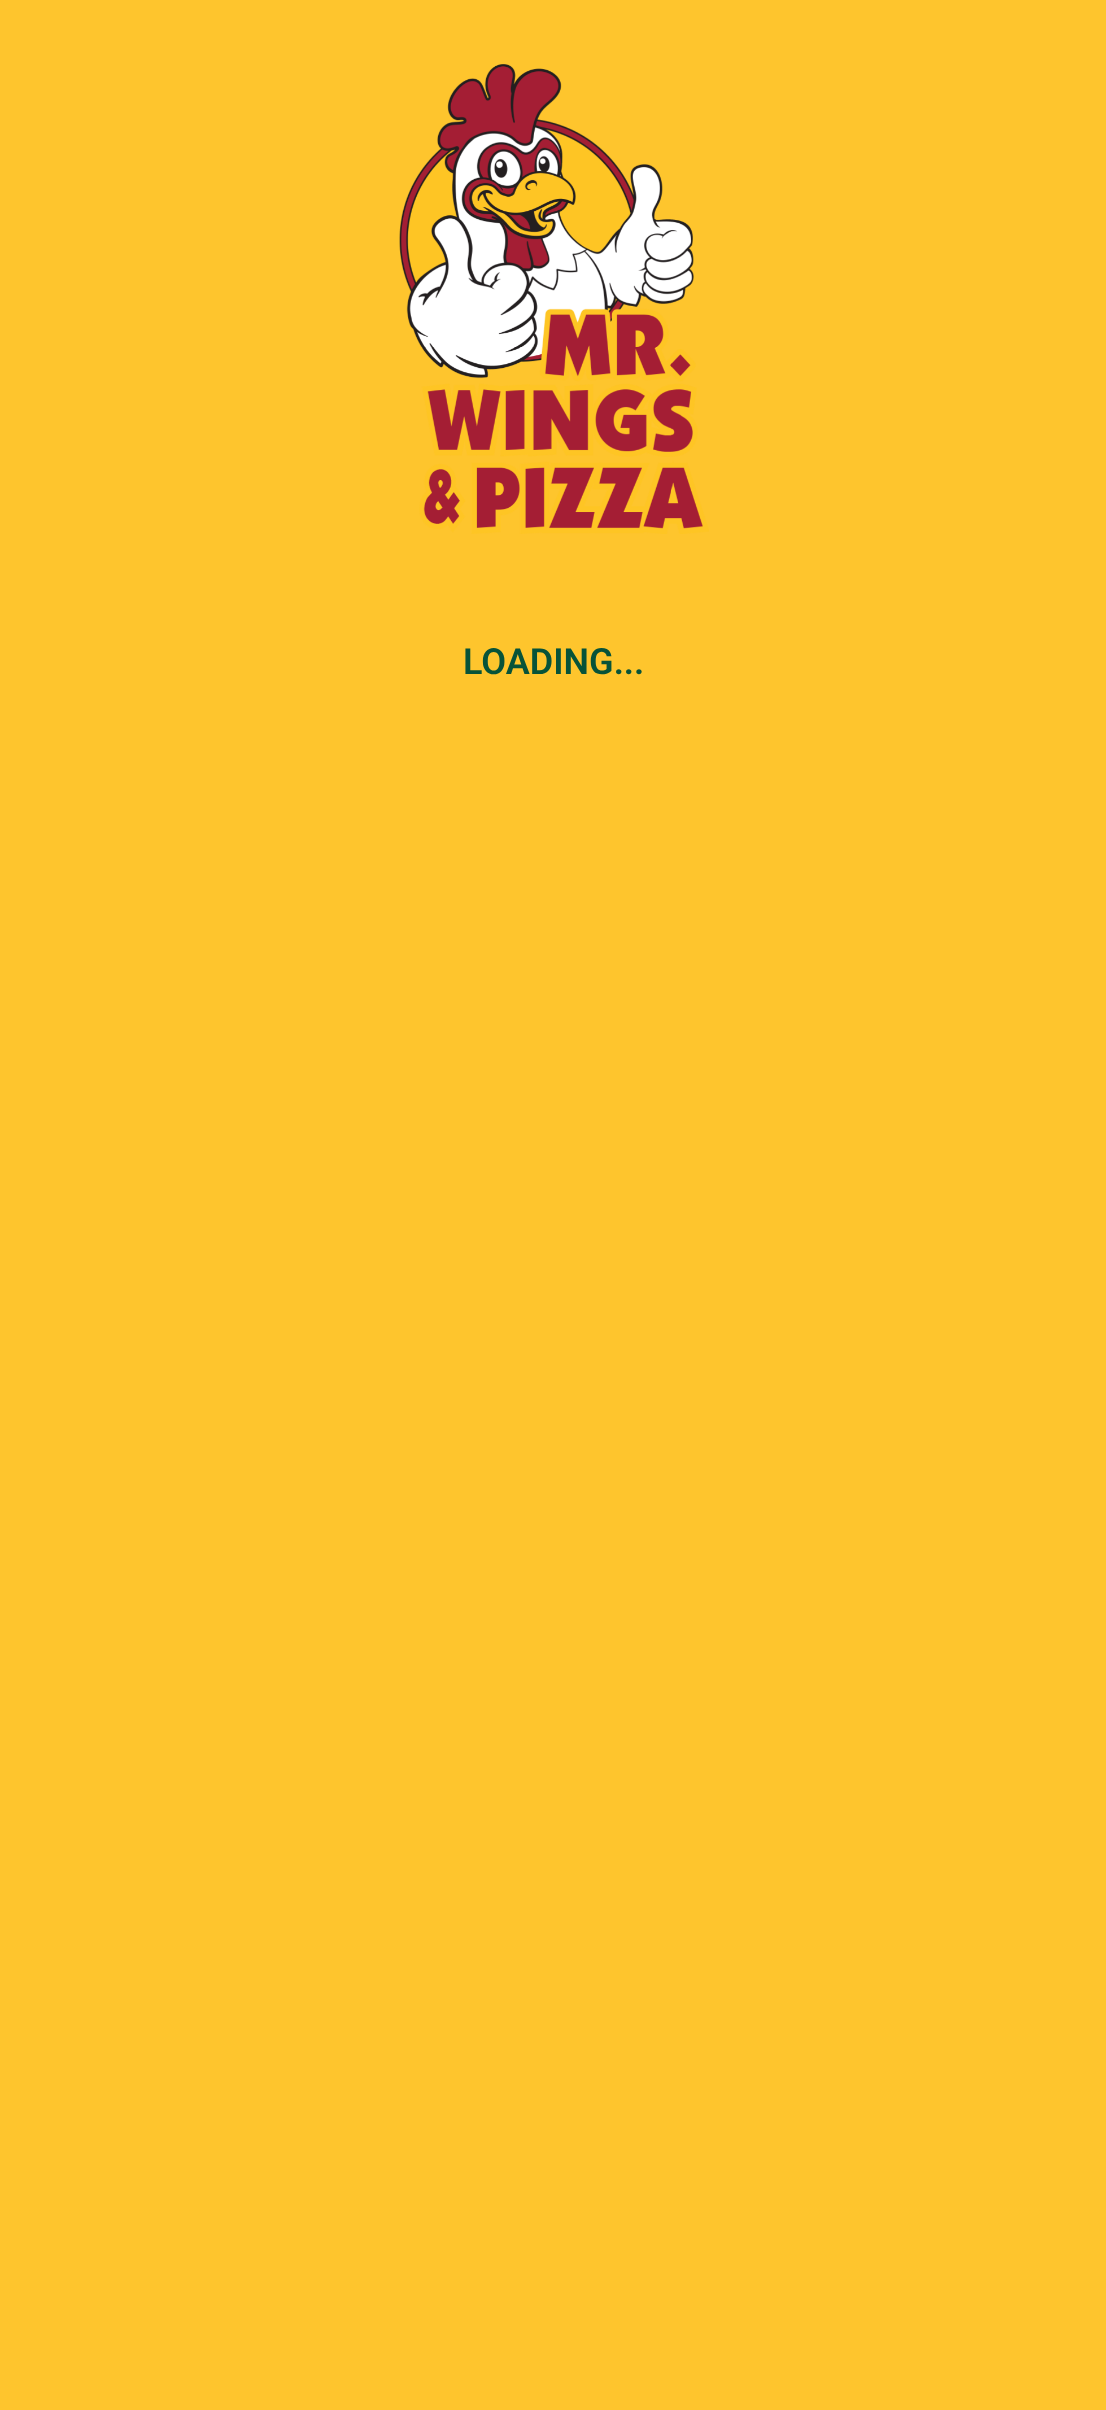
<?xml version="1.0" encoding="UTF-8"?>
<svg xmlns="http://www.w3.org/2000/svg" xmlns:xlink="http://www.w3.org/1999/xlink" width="1106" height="2410">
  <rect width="100%" height="100%" fill="#fec52d" />
  <image x="399" y="64" width="310" height="470" xlink:href="image1.png" />
  <text x="463" y="674" style="font-family: Roboto; font-size: 36px; font-weight: 600; fill: #075339">LOADING...</text>
</svg>
